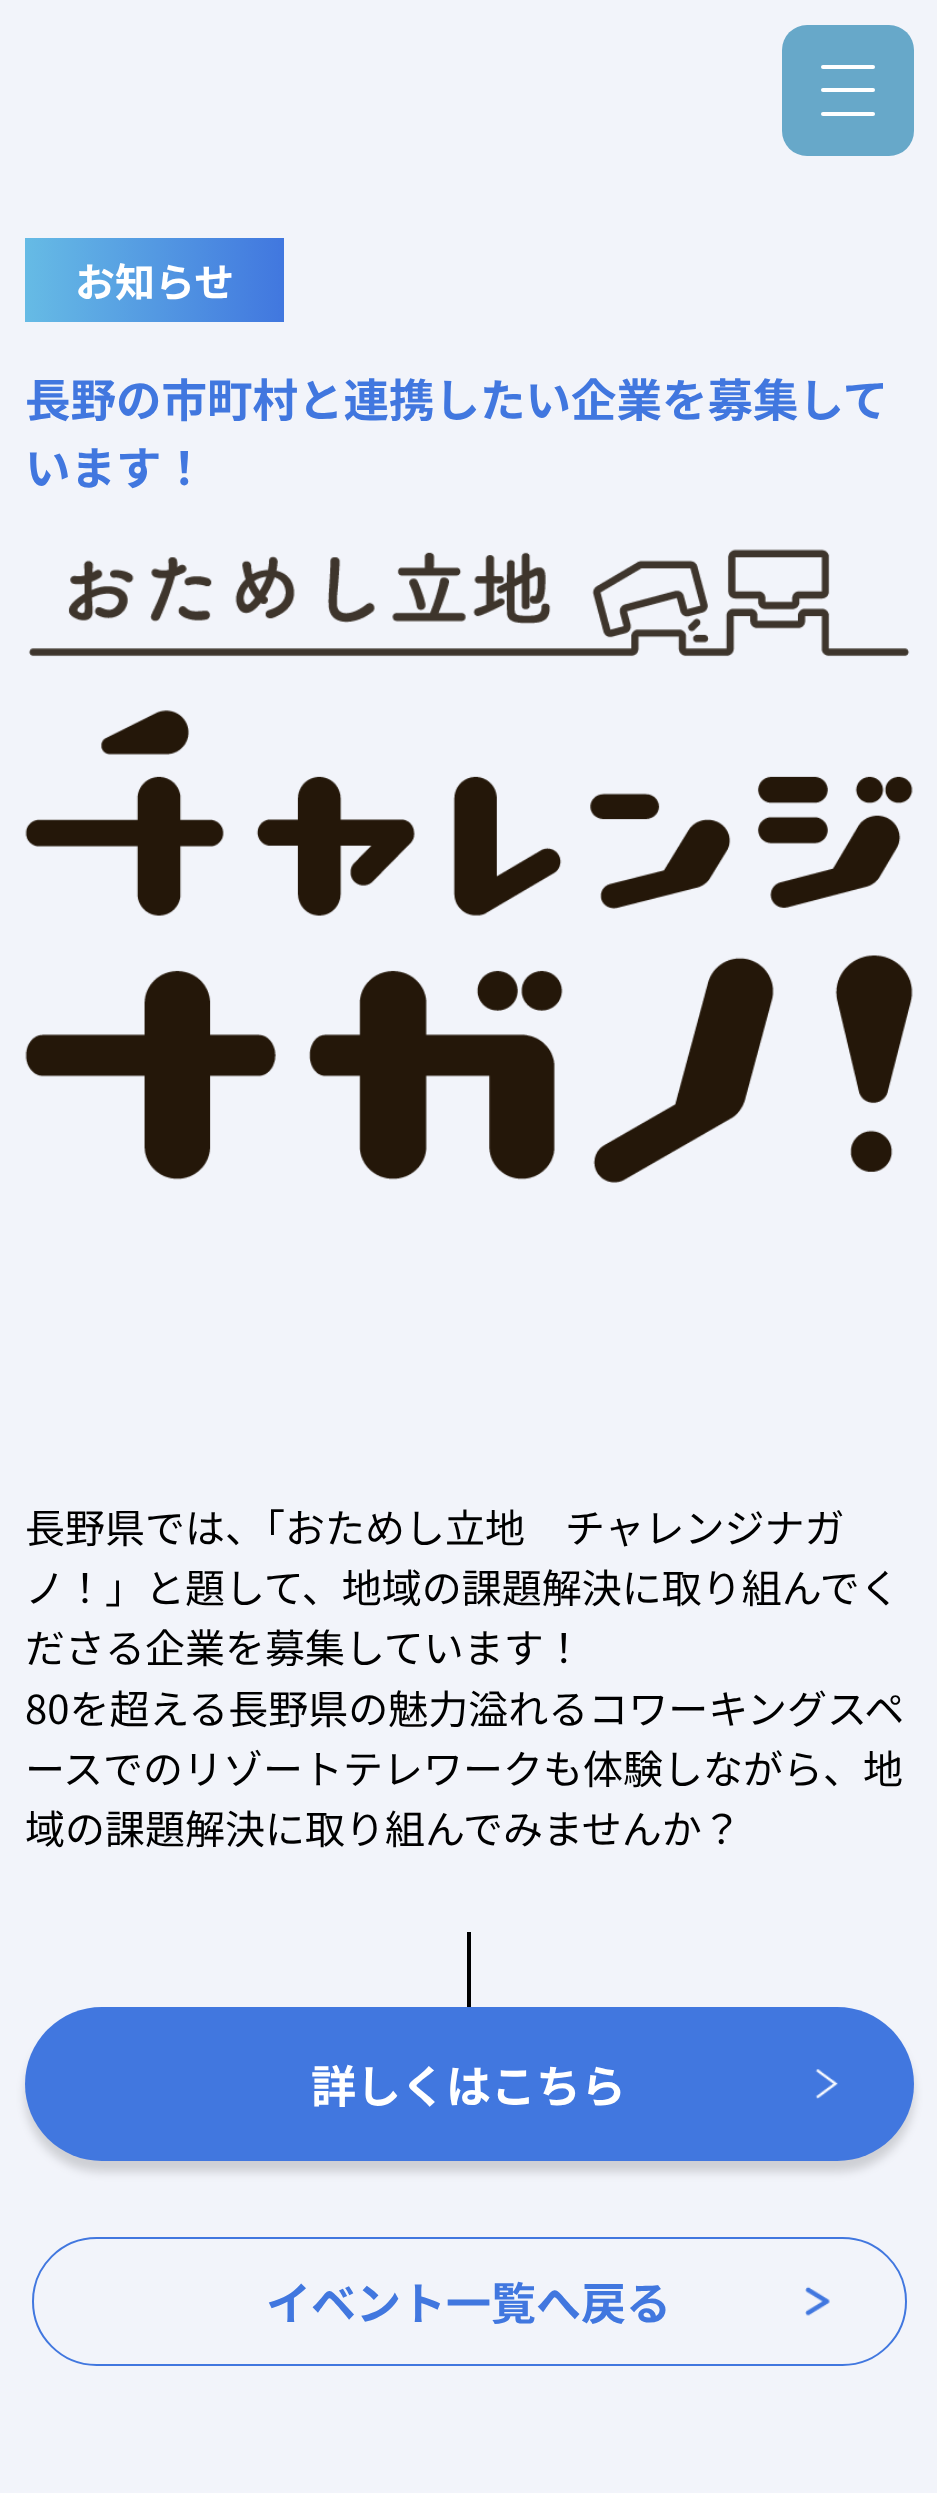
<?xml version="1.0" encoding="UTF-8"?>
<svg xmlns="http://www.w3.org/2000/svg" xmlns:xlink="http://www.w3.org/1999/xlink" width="937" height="2493">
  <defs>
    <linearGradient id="g1" gradientUnits="userSpaceOnUse" x1="25" y1="280" x2="284" y2="280"><stop offset="0" stop-color="#66bbe5" /><stop offset="1" stop-color="#4177df" /></linearGradient>
  </defs>
  <rect width="100%" height="100%" fill="#f2f4fa" />
  <rect x="782" y="25" width="132" height="131" rx="25" fill="#67a8c9" />
  <rect x="821" y="65" width="54" height="4" rx="2" fill="#ffffff" />
  <rect x="821" y="88" width="54" height="4" rx="2" fill="#ffffff" />
  <rect x="821" y="112" width="54" height="4" rx="2" fill="#ffffff" />
  <rect x="25" y="238" width="259" height="84" fill="url(#g1)" />
  <image x="25" y="549" width="888" height="634" xlink:href="image1.png" />
  <rect x="467" y="1932" width="4" height="75" fill="#000000" />
  <rect x="25" y="2018" width="889" height="154" rx="77" fill="#000000" fill-opacity="0.15" filter="blur(5px)" />
  <rect x="25" y="2007" width="889" height="154" rx="77" fill="#4177df" />
  <image x="815" y="2069" width="23" height="30" xlink:href="image2.png" />
  <rect x="33" y="2238" width="873" height="127" rx="63.5" fill="none" stroke="#4177df" stroke-width="2" />
  <image x="805" y="2286" width="25" height="30" xlink:href="image3.png" />
  <text x="75" y="297" style="font-family: Noto Sans JP; font-size: 40px; font-weight: bold; fill: #ffffff">お知らせ</text>
  <text x="25" y="417" style="font-family: Noto Sans JP; font-size: 45.5px; font-weight: bold; fill: #4177df">長野の市町村と連携したい企業を募集して</text>
  <text x="25" y="485" style="font-family: Noto Sans JP; font-size: 45.5px; font-weight: bold; fill: #4177df">います！</text>
  <text x="25" y="1543" style="font-family: Noto Sans JP; font-size: 40px; fill: #000000">長野県では、「おためし立地　チャレンジナガ</text>
  <text x="25" y="1603" style="font-family: Noto Sans JP; font-size: 40px; fill: #000000">ノ！」と題して、地域の課題解決に取り組んでく</text>
  <text x="25" y="1663" style="font-family: Noto Sans JP; font-size: 40px; fill: #000000">ださる企業を募集しています！</text>
  <text x="25" y="1724" style="font-family: Noto Sans JP; font-size: 40px; fill: #000000">80を超える長野県の魅力溢れるコワーキングスペ</text>
  <text x="25" y="1784" style="font-family: Noto Sans JP; font-size: 40px; fill: #000000">ースでのリゾートテレワークも体験しながら、地</text>
  <text x="25" y="1844" style="font-family: Noto Sans JP; font-size: 40px; fill: #000000">域の課題解決に取り組んでみませんか？</text>
  <text x="311" y="2103" style="font-family: Noto Sans JP; font-size: 45px; font-weight: bold; fill: #ffffff">詳しくはこちら</text>
  <text x="266" y="2320" style="font-family: Noto Sans JP; font-size: 45px; font-weight: bold; fill: #4177df">イベント一覧へ戻る</text>
</svg>
